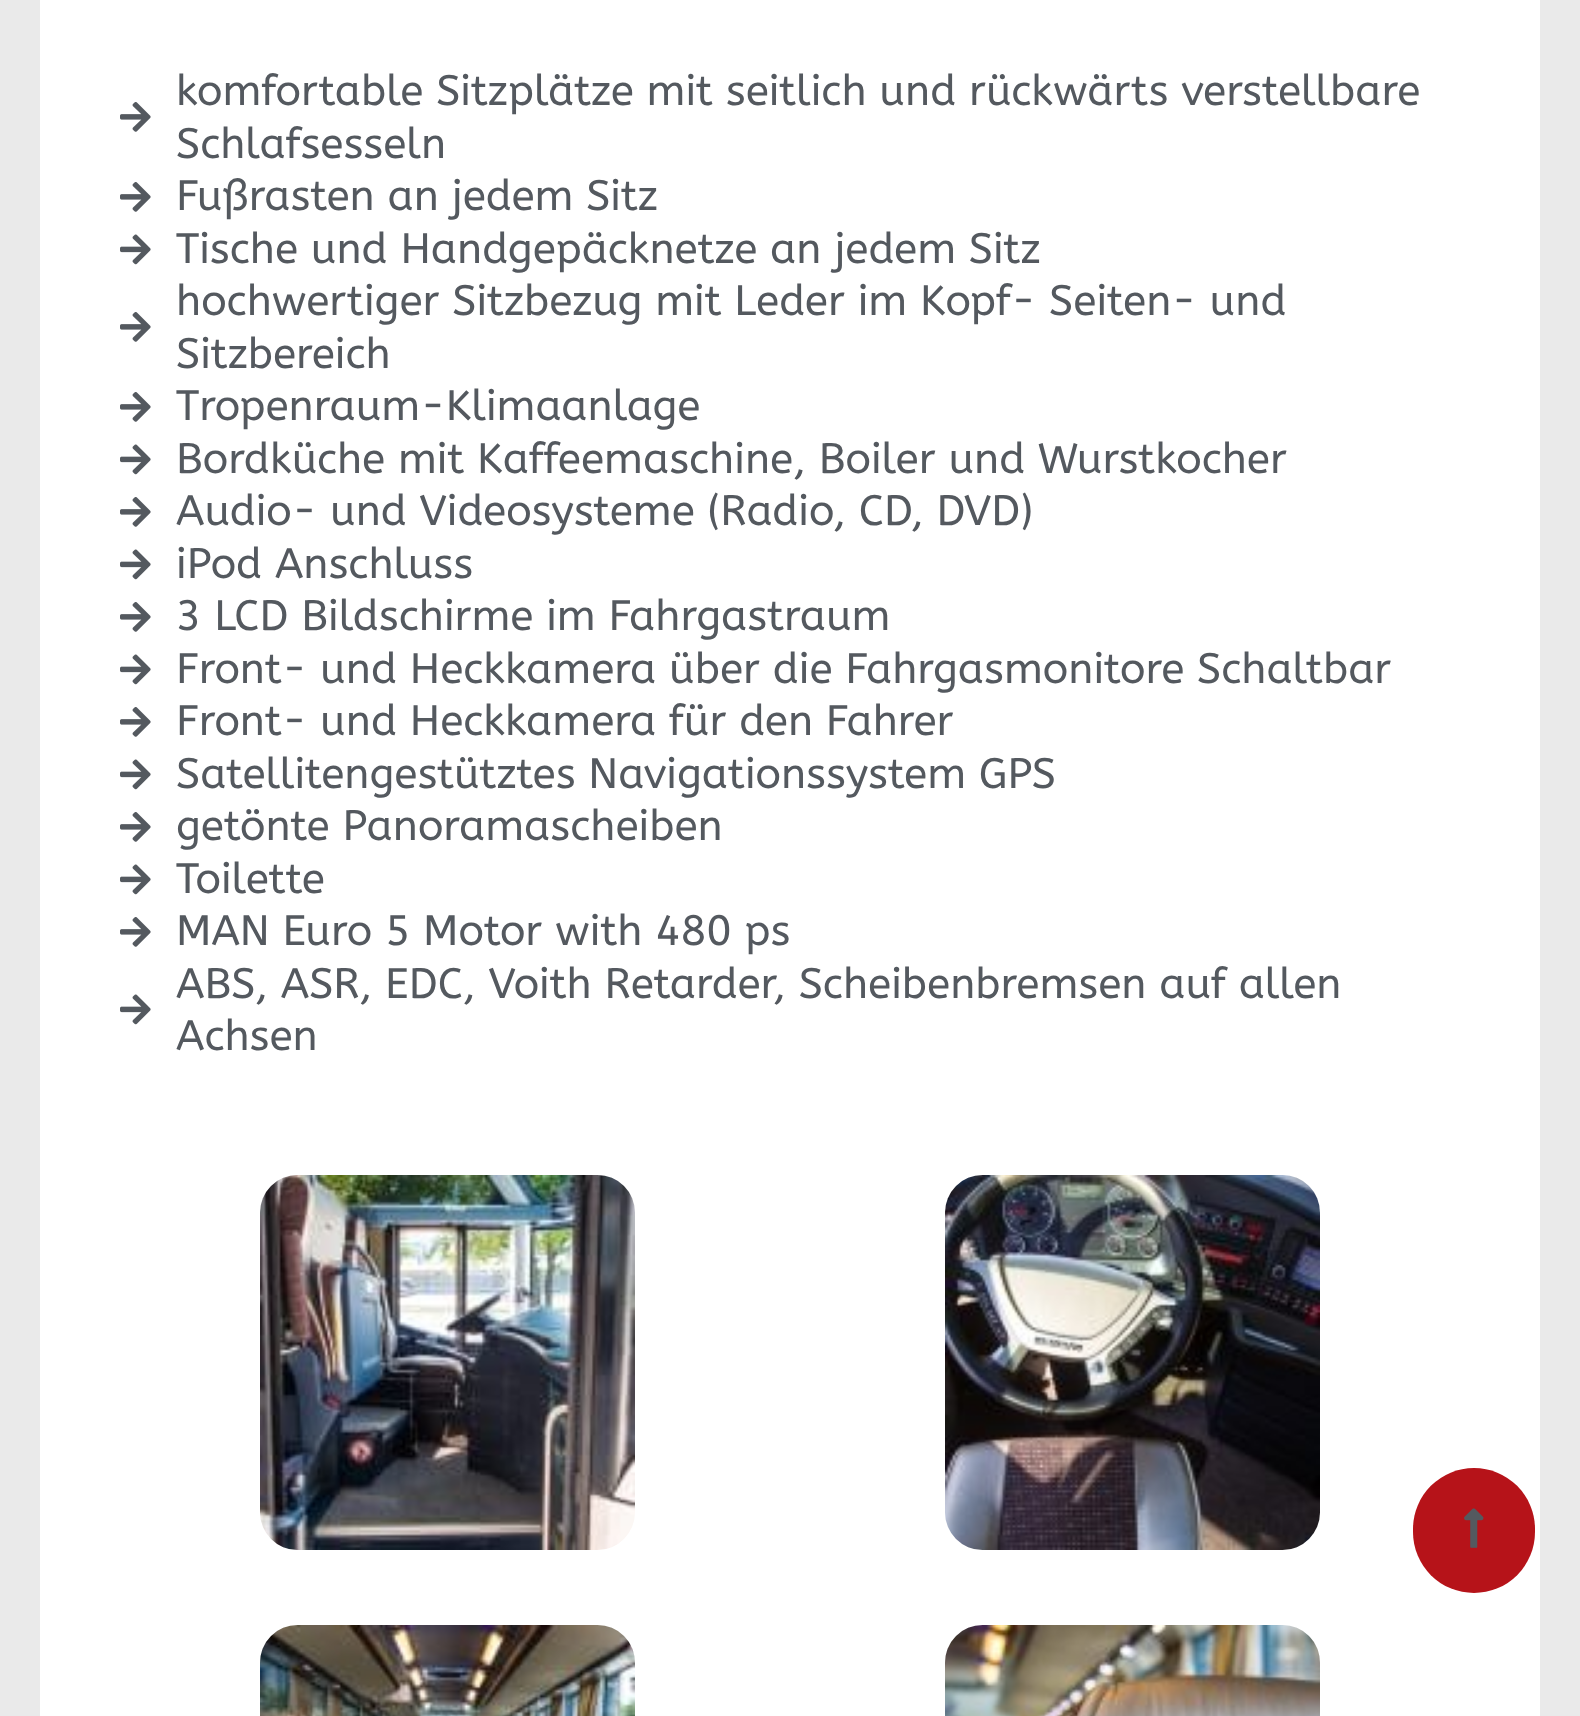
<?xml version="1.0" encoding="UTF-8"?>
<svg xmlns="http://www.w3.org/2000/svg" xmlns:xlink="http://www.w3.org/1999/xlink" width="1580" height="1716">
  <rect width="100%" height="100%" fill="#eaeaea" />
  <rect x="40" width="1500" height="1716" fill="#ffffff" />
  <image x="120" y="102" width="31" height="30" xlink:href="image1.png" />
  <image x="120" y="182" width="31" height="30" xlink:href="image1.png" />
  <image x="120" y="234" width="31" height="31" xlink:href="image2.png" />
  <image x="120" y="312" width="31" height="30" xlink:href="image1.png" />
  <image x="120" y="392" width="31" height="30" xlink:href="image1.png" />
  <image x="120" y="444" width="31" height="31" xlink:href="image2.png" />
  <image x="120" y="497" width="31" height="30" xlink:href="image1.png" />
  <image x="120" y="549" width="31" height="31" xlink:href="image2.png" />
  <image x="120" y="602" width="31" height="30" xlink:href="image1.png" />
  <image x="120" y="654" width="31" height="31" xlink:href="image2.png" />
  <image x="120" y="707" width="31" height="30" xlink:href="image1.png" />
  <image x="120" y="759" width="31" height="31" xlink:href="image2.png" />
  <image x="120" y="812" width="31" height="30" xlink:href="image1.png" />
  <image x="120" y="864" width="31" height="31" xlink:href="image2.png" />
  <image x="120" y="917" width="31" height="30" xlink:href="image1.png" />
  <image x="120" y="994" width="31" height="31" xlink:href="image2.png" />
  <image x="260" y="1175" width="375" height="375" xlink:href="image3.png" />
  <image x="945" y="1175" width="375" height="375" xlink:href="image4.png" />
  <image x="260" y="1625" width="375" height="91" xlink:href="image5.png" />
  <image x="945" y="1625" width="375" height="91" xlink:href="image6.png" />
  <rect x="1413" y="1468" width="122" height="125" rx="61" fill="#b61319" />
  <image x="1464" y="1508" width="20" height="40" xlink:href="image7.png" />
  <text x="176" y="105" style="font-family: ABeeZee; font-size: 42.5px; fill: #54595f">komfortable Sitzplätze mit seitlich und rückwärts verstellbare</text>
  <text x="176" y="158" style="font-family: ABeeZee; font-size: 42.5px; fill: #54595f">Schlafsesseln</text>
  <text x="176" y="210" style="font-family: ABeeZee; font-size: 42.5px; fill: #54595f">Fußrasten an jedem Sitz</text>
  <text x="176" y="263" style="font-family: ABeeZee; font-size: 42.5px; fill: #54595f">Tische und Handgepäcknetze an jedem Sitz</text>
  <text x="176" y="315" style="font-family: ABeeZee; font-size: 42.5px; fill: #54595f">hochwertiger Sitzbezug mit Leder im Kopf- Seiten- und</text>
  <text x="176" y="368" style="font-family: ABeeZee; font-size: 42.5px; fill: #54595f">Sitzbereich</text>
  <text x="176" y="420" style="font-family: ABeeZee; font-size: 42.5px; fill: #54595f">Tropenraum-Klimaanlage</text>
  <text x="176" y="473" style="font-family: ABeeZee; font-size: 42.5px; fill: #54595f">Bordküche mit Kaffeemaschine, Boiler und Wurstkocher</text>
  <text x="176" y="525" style="font-family: ABeeZee; font-size: 42.5px; fill: #54595f">Audio- und Videosysteme (Radio, CD, DVD)</text>
  <text x="176" y="578" style="font-family: ABeeZee; font-size: 42.5px; fill: #54595f">iPod Anschluss</text>
  <text x="176" y="630" style="font-family: ABeeZee; font-size: 42.5px; fill: #54595f">3 LCD Bildschirme im Fahrgastraum</text>
  <text x="176" y="683" style="font-family: ABeeZee; font-size: 42.5px; fill: #54595f">Front- und Heckkamera über die Fahrgasmonitore Schaltbar</text>
  <text x="176" y="735" style="font-family: ABeeZee; font-size: 42.5px; fill: #54595f">Front- und Heckkamera für den Fahrer</text>
  <text x="176" y="788" style="font-family: ABeeZee; font-size: 42.5px; fill: #54595f">Satellitengestütztes Navigationssystem GPS</text>
  <text x="176" y="840" style="font-family: ABeeZee; font-size: 42.5px; fill: #54595f">getönte Panoramascheiben</text>
  <text x="176" y="893" style="font-family: ABeeZee; font-size: 42.5px; fill: #54595f">Toilette</text>
  <text x="176" y="945" style="font-family: ABeeZee; font-size: 42.5px; fill: #54595f">MAN Euro 5 Motor with 480 ps</text>
  <text x="176" y="998" style="font-family: ABeeZee; font-size: 42.5px; fill: #54595f">ABS, ASR, EDC, Voith Retarder, Scheibenbremsen auf allen</text>
  <text x="176" y="1050" style="font-family: ABeeZee; font-size: 42.5px; fill: #54595f">Achsen</text>
</svg>
